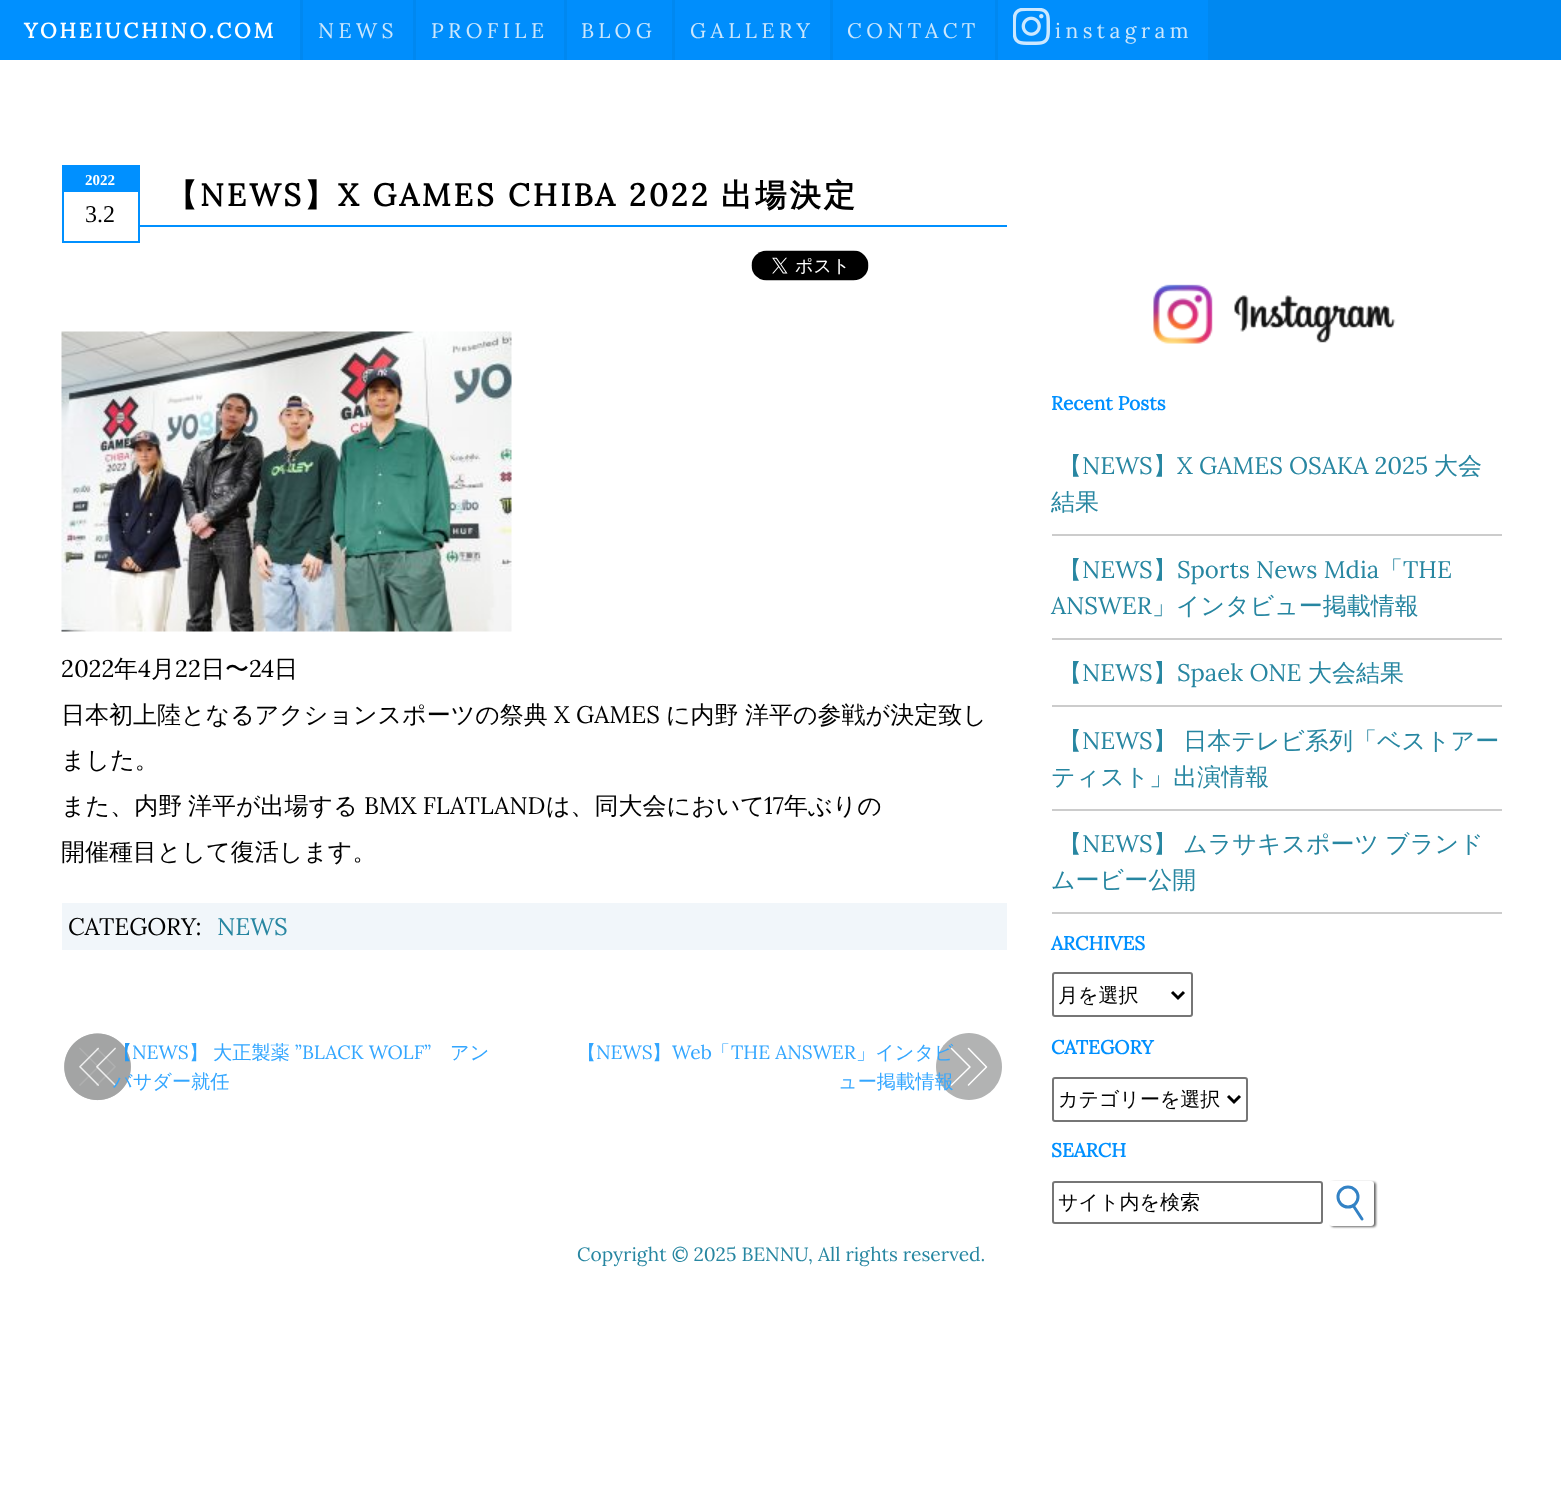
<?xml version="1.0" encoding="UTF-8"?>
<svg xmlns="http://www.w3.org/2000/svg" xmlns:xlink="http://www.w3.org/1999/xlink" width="1561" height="1495">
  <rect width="100%" height="100%" fill="#ffffff" />
  <rect x="300" width="1261" height="60" fill="#0088f0" />
  <rect width="300" height="60" fill="#0090ff" />
  <rect x="303" width="110" height="60" fill="#008efc" />
  <rect x="416" width="148" height="60" fill="#008efc" />
  <rect x="567" width="105" height="60" fill="#008efc" />
  <rect x="675" width="155" height="60" fill="#008efc" />
  <rect x="833" width="162" height="60" fill="#008efc" />
  <rect x="998" width="210" height="60" fill="#008efc" />
  <image x="1013" y="8" width="37" height="37" xlink:href="image1.png" />
  <rect x="63" y="166" width="76" height="76" fill="none" stroke="#0090ff" stroke-width="2" />
  <rect x="64" y="167" width="74" height="25" fill="#0090ff" />
  <rect x="140" y="225" width="867" height="2" fill="#0090ff" />
  <image x="751" y="250" width="118" height="31" xlink:href="image2.png" />
  <image x="61" y="331" width="451" height="301" xlink:href="image3.png" />
  <rect x="62" y="903" width="945" height="47" fill="#f1f6fa" />
  <image x="64" y="1033" width="67" height="68" xlink:href="image4.png" />
  <path d="M 1002 1067 c 0 -19 -15 -34 -33 -34 c -18 0 -33 15 -33 34 c 0 18 15 33 33 33 c 18 0 33 -15 33 -33 z" fill="#b2b3b3" />
  <path d="M 951.5 1048.5 l 18.5 18.5 l -18.5 18 m 17 -36.5 l 18 18.5 l -18 18" fill="none" stroke="#ffffff" stroke-width="1.5" stroke-linecap="round" stroke-linejoin="round" />
  <image x="1153" y="284" width="243" height="60" xlink:href="image5.png" />
  <rect x="1052" y="534" width="450" height="2" fill="#cccccc" />
  <rect x="1052" y="638" width="450" height="2" fill="#cccccc" />
  <rect x="1052" y="705" width="450" height="2" fill="#cccccc" />
  <rect x="1052" y="809" width="450" height="2" fill="#cccccc" />
  <rect x="1052" y="912" width="450" height="2" fill="#cccccc" />
  <rect x="1053" y="973" width="139" height="43" rx="2" fill="none" stroke="#767676" stroke-width="2" />
  <path d="M 1172 992 l 6 6 l 6 -6" fill="none" stroke="#000000" stroke-width="3" />
  <rect x="1053" y="1078" width="194" height="43" rx="2" fill="none" stroke="#767676" stroke-width="2" />
  <path d="M 1228 1096 l 6 6 l 6 -6" fill="none" stroke="#000000" stroke-width="3" />
  <rect x="1053" y="1182" width="269" height="41" rx="2" fill="none" stroke="#767676" stroke-width="2" />
  <rect x="1331" y="1182" width="45" height="45" rx="3" fill="#666666" filter="blur(1px)" />
  <rect x="1329" y="1181" width="45" height="45" rx="3" fill="#ffffff" />
  <circle cx="1348" cy="1197" r="10" fill="none" stroke="#3382c5" stroke-width="3" />
  <path d="M 1353.5 1206 l 8.5 13" fill="none" stroke="#3382c5" stroke-width="3" stroke-linecap="round" />
  <text x="24" y="38" style="font-family: Lora; font-size: 21px; font-weight: bold; letter-spacing: 3px; fill: #ffffff">YOHEIUCHINO.COM</text>
  <text x="318" y="38" style="font-family: Lora; font-size: 21px; letter-spacing: 4.5px; fill: #cce7fc">NEWS</text>
  <text x="431" y="38" style="font-family: Lora; font-size: 21px; letter-spacing: 4.5px; fill: #cce7fc">PROFILE</text>
  <text x="581" y="38" style="font-family: Lora; font-size: 21px; letter-spacing: 4.5px; fill: #cce7fc">BLOG</text>
  <text x="690" y="38" style="font-family: Lora; font-size: 21px; letter-spacing: 4.5px; fill: #cce7fc">GALLERY</text>
  <text x="847" y="38" style="font-family: Lora; font-size: 21px; letter-spacing: 4.5px; fill: #cce7fc">CONTACT</text>
  <text x="1055" y="38" style="font-family: Lora; font-size: 21px; letter-spacing: 4.5px; fill: #cce7fc">instagram</text>
  <text x="85" y="185" style="font-family: Liberation Serif; font-size: 15px; font-weight: bold; fill: #ffffff">2022</text>
  <text x="85" y="222" style="font-family: Liberation Serif; font-size: 24px; fill: #000000">3.2</text>
  <text x="166" y="206" style="font-family: WenQuanYi Zen Hei; font-size: 31.25px; font-weight: bold; letter-spacing: 3px; fill: #000000">【</text>
  <text x="200" y="206" style="font-family: Lora; font-size: 31.25px; font-weight: bold; letter-spacing: 3px; fill: #000000">NEWS</text>
  <text x="304" y="206" style="font-family: WenQuanYi Zen Hei; font-size: 31.25px; font-weight: bold; letter-spacing: 3px; fill: #000000">】</text>
  <text x="338" y="206" style="font-family: Lora; font-size: 31.25px; font-weight: bold; letter-spacing: 3px; fill: #000000">X GAMES CHIBA 2022</text>
  <text x="721" y="206" style="font-family: WenQuanYi Zen Hei; font-size: 31.25px; font-weight: bold; letter-spacing: 3px; fill: #000000">出場決定</text>
  <text x="61" y="677" style="font-family: Lora; font-size: 24px; fill: #000000">2022</text>
  <text x="114" y="677" style="font-family: WenQuanYi Zen Hei; font-size: 24px; font-weight: 500; fill: #000000">年</text>
  <text x="138" y="677" style="font-family: Lora; font-size: 24px; fill: #000000">4</text>
  <text x="151" y="677" style="font-family: WenQuanYi Zen Hei; font-size: 24px; font-weight: 500; fill: #000000">月</text>
  <text x="175" y="677" style="font-family: Lora; font-size: 24px; fill: #000000">22</text>
  <text x="201" y="677" style="font-family: WenQuanYi Zen Hei; font-size: 24px; font-weight: 500; fill: #000000">日〜</text>
  <text x="249" y="677" style="font-family: Lora; font-size: 24px; fill: #000000">24</text>
  <text x="274" y="677" style="font-family: WenQuanYi Zen Hei; font-size: 24px; font-weight: 500; fill: #000000">日</text>
  <text x="61" y="723" style="font-family: WenQuanYi Zen Hei; font-size: 24px; font-weight: 500; fill: #000000">日本初上陸となるアクションスポーツの祭典</text>
  <text x="554" y="723" style="font-family: Lora; font-size: 24px; fill: #000000">X GAMES</text>
  <text x="666" y="723" style="font-family: WenQuanYi Zen Hei; font-size: 24px; font-weight: 500; fill: #000000">に内野</text>
  <text x="745" y="723" style="font-family: WenQuanYi Zen Hei; font-size: 24px; font-weight: 500; fill: #000000">洋平の参戦が決定致し</text>
  <text x="61" y="768" style="font-family: WenQuanYi Zen Hei; font-size: 24px; font-weight: 500; fill: #000000">ました。</text>
  <text x="61" y="814" style="font-family: WenQuanYi Zen Hei; font-size: 24px; font-weight: 500; fill: #000000">また、内野</text>
  <text x="188" y="814" style="font-family: WenQuanYi Zen Hei; font-size: 24px; font-weight: 500; fill: #000000">洋平が出場する</text>
  <text x="364" y="814" style="font-family: Lora; font-size: 24px; fill: #000000">BMX FLATLAND</text>
  <text x="546" y="814" style="font-family: WenQuanYi Zen Hei; font-size: 24px; font-weight: 500; fill: #000000">は、同大会において</text>
  <text x="764" y="814" style="font-family: Lora; font-size: 24px; fill: #000000">17</text>
  <text x="784" y="814" style="font-family: WenQuanYi Zen Hei; font-size: 24px; font-weight: 500; fill: #000000">年ぶりの</text>
  <text x="61" y="860" style="font-family: WenQuanYi Zen Hei; font-size: 24px; font-weight: 500; fill: #000000">開催種目として復活します。</text>
  <text x="68" y="935" style="font-family: Lora; font-size: 24px; fill: #000000">CATEGORY:</text>
  <text x="217" y="935" style="font-family: Lora; font-size: 24px; fill: #2786a1">NEWS</text>
  <text x="113" y="1059" style="font-family: WenQuanYi Zen Hei; font-size: 19.2px; font-weight: 500; fill: #289bf4">【</text>
  <text x="132" y="1059" style="font-family: Lora; font-size: 19.2px; fill: #33a6ff">NEWS</text>
  <text x="189" y="1059" style="font-family: WenQuanYi Zen Hei; font-size: 19.2px; font-weight: 500; fill: #33a6ff">】</text>
  <text x="213" y="1059" style="font-family: WenQuanYi Zen Hei; font-size: 19.2px; font-weight: 500; fill: #33a6ff">大正製薬</text>
  <text x="295" y="1059" style="font-family: Lora; font-size: 19.2px; fill: #33a6ff">”BLACK WOLF”</text>
  <text x="450" y="1059" style="font-family: WenQuanYi Zen Hei; font-size: 19.2px; font-weight: 500; fill: #33a6ff">アン</text>
  <text x="113" y="1088" style="font-family: WenQuanYi Zen Hei; font-size: 19.2px; font-weight: 500; fill: #33a6ff">バサダー就任</text>
  <text x="577" y="1059" style="font-family: WenQuanYi Zen Hei; font-size: 19.2px; font-weight: 500; fill: #33a6ff">【</text>
  <text x="596" y="1059" style="font-family: Lora; font-size: 19.2px; fill: #33a6ff">NEWS</text>
  <text x="652" y="1059" style="font-family: WenQuanYi Zen Hei; font-size: 19.2px; font-weight: 500; fill: #33a6ff">】</text>
  <text x="672" y="1059" style="font-family: Lora; font-size: 19.2px; fill: #33a6ff">Web</text>
  <text x="711" y="1059" style="font-family: WenQuanYi Zen Hei; font-size: 19.2px; font-weight: 500; fill: #33a6ff">「</text>
  <text x="731" y="1059" style="font-family: Lora; font-size: 19.2px; fill: #33a6ff">THE ANSWER</text>
  <text x="856" y="1059" style="font-family: WenQuanYi Zen Hei; font-size: 19.2px; font-weight: 500; fill: #33a6ff">」インタビ</text>
  <text x="838" y="1088" style="font-family: WenQuanYi Zen Hei; font-size: 19.2px; font-weight: 500; fill: #33a6ff">ュー掲載情報</text>
  <text x="1051" y="410" style="font-family: Lora; font-size: 19.2px; font-weight: bold; fill: #0090ff">Recent Posts</text>
  <text x="1058" y="474" style="font-family: WenQuanYi Zen Hei; font-size: 24px; font-weight: 500; fill: #2786a1">【</text>
  <text x="1082" y="474" style="font-family: Lora; font-size: 24px; fill: #2786a1">NEWS</text>
  <text x="1153" y="474" style="font-family: WenQuanYi Zen Hei; font-size: 24px; font-weight: 500; fill: #2786a1">】</text>
  <text x="1177" y="474" style="font-family: Lora; font-size: 24px; fill: #2786a1">X GAMES OSAKA 2025</text>
  <text x="1434" y="474" style="font-family: WenQuanYi Zen Hei; font-size: 24px; font-weight: 500; fill: #2786a1">大会</text>
  <text x="1051" y="510" style="font-family: WenQuanYi Zen Hei; font-size: 24px; font-weight: 500; fill: #2786a1">結果</text>
  <text x="1058" y="578" style="font-family: WenQuanYi Zen Hei; font-size: 24px; font-weight: 500; fill: #2786a1">【</text>
  <text x="1082" y="578" style="font-family: Lora; font-size: 24px; fill: #2786a1">NEWS</text>
  <text x="1153" y="578" style="font-family: WenQuanYi Zen Hei; font-size: 24px; font-weight: 500; fill: #2786a1">】</text>
  <text x="1177" y="578" style="font-family: Lora; font-size: 24px; fill: #2786a1">Sports News Mdia</text>
  <text x="1379" y="578" style="font-family: WenQuanYi Zen Hei; font-size: 24px; font-weight: 500; fill: #2786a1">「</text>
  <text x="1403" y="578" style="font-family: Lora; font-size: 24px; fill: #2786a1">THE</text>
  <text x="1051" y="614" style="font-family: Lora; font-size: 24px; fill: #2786a1">ANSWER</text>
  <text x="1152" y="614" style="font-family: WenQuanYi Zen Hei; font-size: 24px; font-weight: 500; fill: #2786a1">」インタビュー掲載情報</text>
  <text x="1058" y="681" style="font-family: WenQuanYi Zen Hei; font-size: 24px; font-weight: 500; fill: #2786a1">【</text>
  <text x="1082" y="681" style="font-family: Lora; font-size: 24px; fill: #2786a1">NEWS</text>
  <text x="1153" y="681" style="font-family: WenQuanYi Zen Hei; font-size: 24px; font-weight: 500; fill: #2786a1">】</text>
  <text x="1177" y="681" style="font-family: Lora; font-size: 24px; fill: #2786a1">Spaek ONE</text>
  <text x="1308" y="681" style="font-family: WenQuanYi Zen Hei; font-size: 24px; font-weight: 500; fill: #2786a1">大会結果</text>
  <text x="1058" y="749" style="font-family: WenQuanYi Zen Hei; font-size: 24px; font-weight: 500; fill: #2786a1">【</text>
  <text x="1082" y="749" style="font-family: Lora; font-size: 24px; fill: #2786a1">NEWS</text>
  <text x="1153" y="749" word-spacing="-1" style="font-family: WenQuanYi Zen Hei; font-size: 24px; font-weight: 500; fill: #2786a1">】 日本テレビ系列「ベストアー</text>
  <text x="1051" y="785" style="font-family: WenQuanYi Zen Hei; font-size: 24px; font-weight: 500; fill: #2786a1">ティスト」出演情報</text>
  <text x="1058" y="852" style="font-family: WenQuanYi Zen Hei; font-size: 24px; font-weight: 500; fill: #2786a1">【</text>
  <text x="1082" y="852" style="font-family: Lora; font-size: 24px; fill: #2786a1">NEWS</text>
  <text x="1153" y="852" word-spacing="-1" style="font-family: WenQuanYi Zen Hei; font-size: 24px; font-weight: 500; fill: #2786a1">】 ムラサキスポーツ ブランド</text>
  <text x="1051" y="888" style="font-family: WenQuanYi Zen Hei; font-size: 24px; font-weight: 500; fill: #2786a1">ムービー公開</text>
  <text x="1051" y="950" style="font-family: Lora; font-size: 19.2px; font-weight: bold; fill: #0090ff">ARCHIVES</text>
  <text x="1058" y="1002" style="font-family: WenQuanYi Zen Hei; font-size: 20px; font-weight: 500; fill: #000000">月を選択</text>
  <text x="1051" y="1054" style="font-family: Lora; font-size: 19.2px; font-weight: bold; fill: #0090ff">CATEGORY</text>
  <text x="1058" y="1106" style="font-family: WenQuanYi Zen Hei; font-size: 20px; font-weight: 500; fill: #000000">カテゴリーを選択</text>
  <text x="1051" y="1157" style="font-family: Lora; font-size: 19.2px; font-weight: bold; fill: #0090ff">SEARCH</text>
  <text x="1058" y="1209" style="font-family: WenQuanYi Zen Hei; font-size: 20px; font-weight: 500; fill: #000000">サイト内を検索</text>
  <text x="577" y="1261" style="font-family: Lora; font-size: 19.2px; fill: #2786a1">Copyright © 2025 BENNU, All rights reserved.</text>
</svg>
